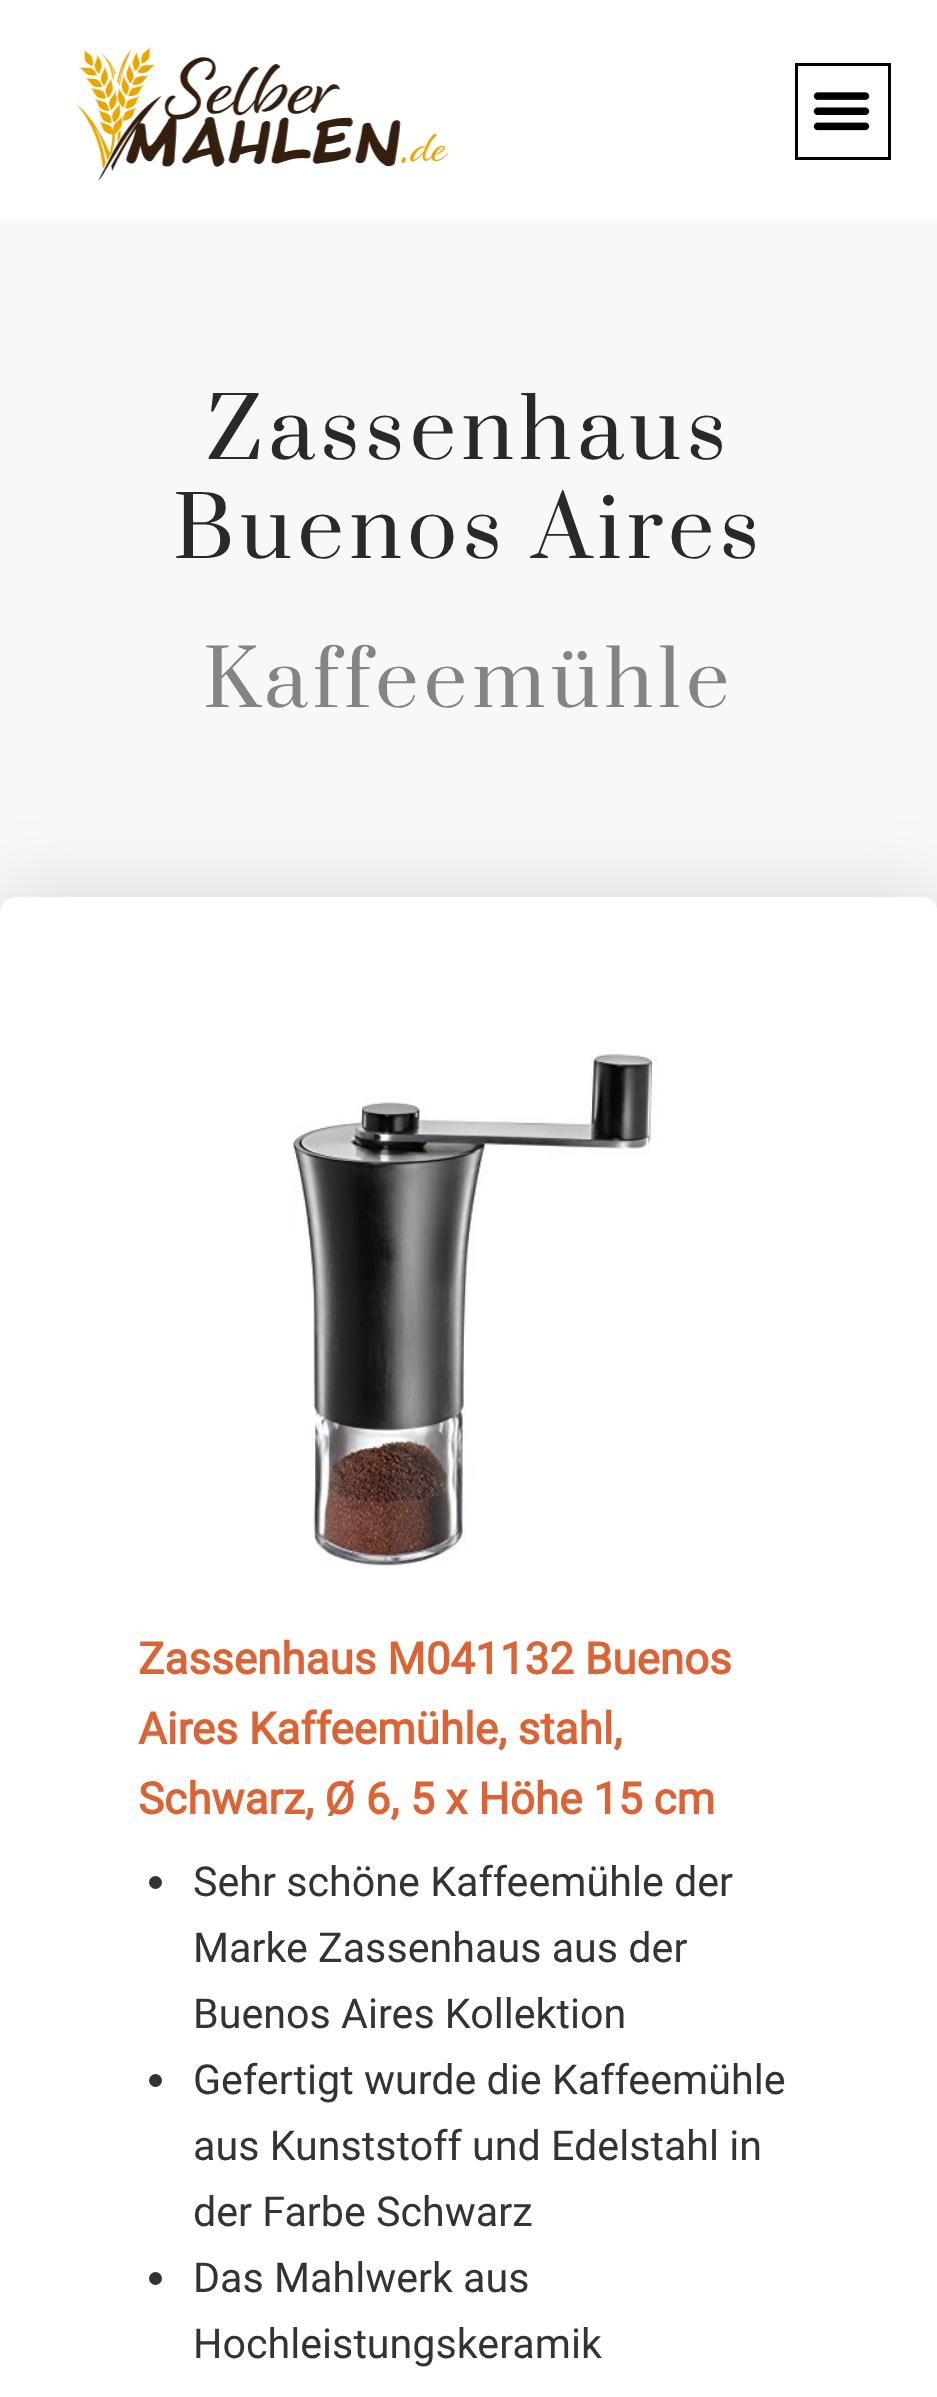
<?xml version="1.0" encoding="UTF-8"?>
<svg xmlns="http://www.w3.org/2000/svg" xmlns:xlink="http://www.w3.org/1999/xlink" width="937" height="2397">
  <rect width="100%" height="100%" fill="#ffffff" />
  <image x="75" y="47" width="374" height="134" xlink:href="image1.png" />
  <rect x="796.5" y="64.5" width="93" height="94" fill="none" stroke="#000000" stroke-width="3" />
  <image x="813" y="92" width="57" height="39" xlink:href="image2.png" />
  <rect y="220" width="937" height="694" fill="#f7f8fa" />
  <rect y="897" width="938" height="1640" rx="17" fill="#000000" fill-opacity="0.13" filter="blur(41px)" />
  <rect y="897" width="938" height="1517" rx="17" fill="#ffffff" />
  <image x="293" y="1054" width="366" height="513" xlink:href="image3.png" />
  <circle cx="155.5" cy="1882.5" r="6.5" fill="#333333" />
  <circle cx="155.5" cy="2080.5" r="6.5" fill="#333333" />
  <circle cx="155.5" cy="2278.5" r="6.5" fill="#333333" />
  <text x="206" y="459" style="font-family: Prata; font-size: 82.5px; letter-spacing: 5.5px; fill: #29292a">Zassenhaus</text>
  <text x="173" y="558" style="font-family: Prata; font-size: 82.5px; letter-spacing: 5.5px; fill: #29292a">Buenos Aires</text>
  <text x="203" y="707" style="font-family: Prata; font-size: 77px; letter-spacing: 5.5px; fill: #848484">Kaffeemühle</text>
  <text x="138" y="1674" style="font-family: Roboto; font-size: 44px; font-weight: bold; fill: #db6437">Zassenhaus M041132 Buenos</text>
  <text x="138" y="1744" style="font-family: Roboto; font-size: 44px; font-weight: bold; fill: #db6437">Aires Kaffeemühle, stahl,</text>
  <text x="138" y="1814" style="font-family: Roboto; font-size: 44px; font-weight: bold; fill: #db6437">Schwarz, Ø 6, 5 x Höhe 15 cm</text>
  <text x="193" y="1896" style="font-family: Roboto; font-size: 41.25px; fill: #333333">Sehr schöne Kaffeemühle der</text>
  <text x="193" y="1962" style="font-family: Roboto; font-size: 41.25px; fill: #333333">Marke Zassenhaus aus der</text>
  <text x="193" y="2028" style="font-family: Roboto; font-size: 41.25px; fill: #333333">Buenos Aires Kollektion</text>
  <text x="193" y="2094" style="font-family: Roboto; font-size: 41.25px; fill: #333333">Gefertigt wurde die Kaffeemühle</text>
  <text x="193" y="2160" style="font-family: Roboto; font-size: 41.25px; fill: #333333">aus Kunststoff und Edelstahl in</text>
  <text x="193" y="2226" style="font-family: Roboto; font-size: 41.25px; fill: #333333">der Farbe Schwarz</text>
  <text x="193" y="2292" style="font-family: Roboto; font-size: 41.25px; fill: #333333">Das Mahlwerk aus</text>
  <text x="193" y="2358" style="font-family: Roboto; font-size: 41.25px; fill: #333333">Hochleistungskeramik</text>
</svg>
